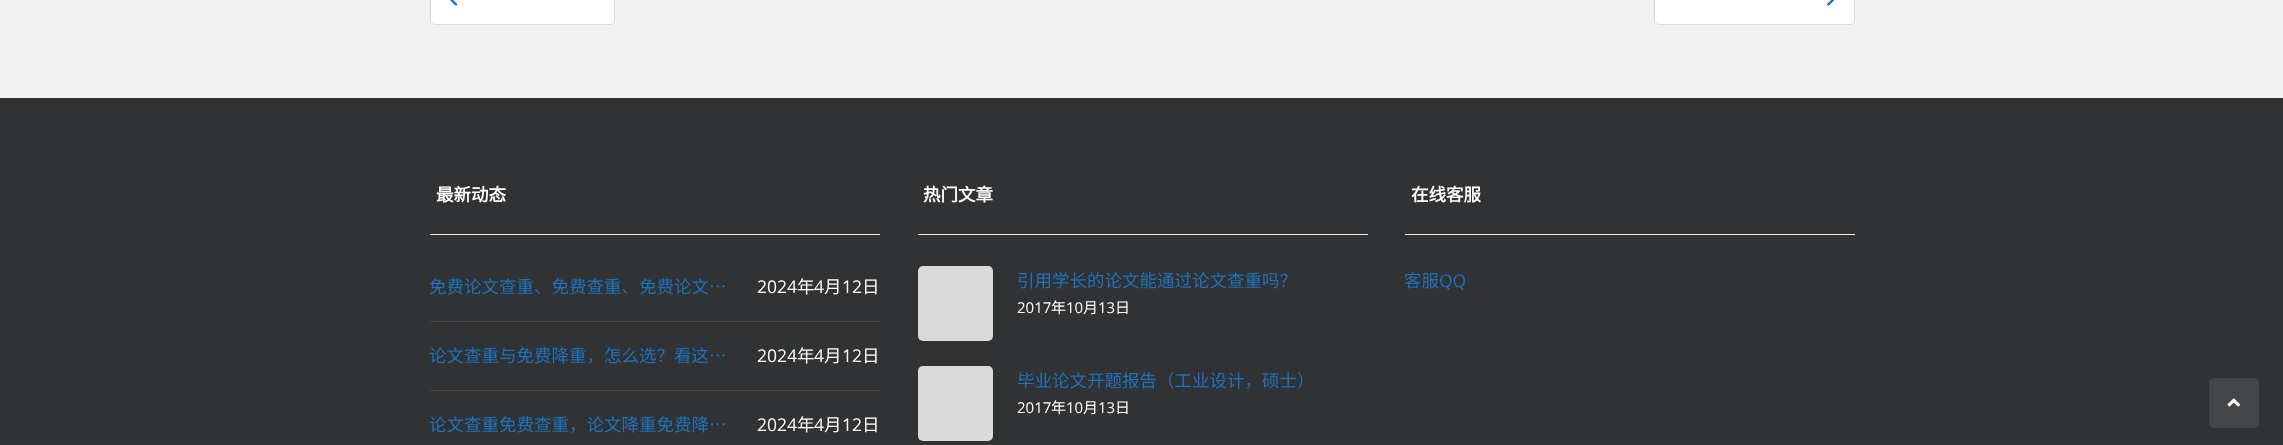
<?xml version="1.0" encoding="UTF-8"?>
<svg xmlns="http://www.w3.org/2000/svg" xmlns:xlink="http://www.w3.org/1999/xlink" width="2283" height="445">
  <rect width="100%" height="100%" fill="#f2f2f2" />
  <rect x="430.5" y="-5.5" width="184" height="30" rx="4.5" fill="#ffffff" stroke="#dadada" />
  <image x="450" y="0" width="8" height="6" xlink:href="image1.png" />
  <rect x="1654.5" y="-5.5" width="200" height="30" rx="4.5" fill="#ffffff" stroke="#dadada" />
  <image x="1827" y="0" width="8" height="6" xlink:href="image2.png" />
  <rect y="98" width="2283" height="347" fill="#313233" />
  <rect x="430" y="234" width="450" height="1" fill="#eeeeee" />
  <rect x="430" y="321" width="450" height="1" fill="#444444" />
  <rect x="430" y="390" width="450" height="1" fill="#444444" />
  <rect x="918" y="234" width="450" height="1" fill="#eeeeee" />
  <rect x="918" y="266" width="75" height="75" rx="5" fill="#dadada" />
  <rect x="918" y="366" width="75" height="75" rx="5" fill="#dadada" />
  <rect x="1405" y="234" width="450" height="1" fill="#eeeeee" />
  <rect x="2209" y="378" width="50" height="50" rx="5" fill="#454647" />
  <image x="2227" y="398" width="13" height="9" xlink:href="image3.png" />
  <text x="436" y="201" style="font-family: Noto Sans CJK SC; font-size: 17.5px; font-weight: bold; fill: #ffffff">最新动态</text>
  <text x="429" y="293" style="font-family: Noto Sans CJK SC; font-size: 17.5px; fill: #1e73be">免费论文查重、免费查重、免费论文…</text>
  <text x="757" y="293" style="font-family: Open Sans; font-size: 17.5px; fill: #ffffff">2024</text>
  <text x="797" y="293" style="font-family: Noto Sans CJK SC; font-size: 17.5px; fill: #ffffff">年</text>
  <text x="814" y="293" style="font-family: Open Sans; font-size: 17.5px; fill: #ffffff">4</text>
  <text x="824" y="293" style="font-family: Noto Sans CJK SC; font-size: 17.5px; fill: #ffffff">月</text>
  <text x="842" y="293" style="font-family: Open Sans; font-size: 17.5px; fill: #ffffff">12</text>
  <text x="862" y="293" style="font-family: Noto Sans CJK SC; font-size: 17.5px; fill: #ffffff">日</text>
  <text x="429" y="362" style="font-family: Noto Sans CJK SC; font-size: 17.5px; fill: #1e73be">论文查重与免费降重，怎么选？看这…</text>
  <text x="757" y="362" style="font-family: Open Sans; font-size: 17.5px; fill: #ffffff">2024</text>
  <text x="797" y="362" style="font-family: Noto Sans CJK SC; font-size: 17.5px; fill: #ffffff">年</text>
  <text x="814" y="362" style="font-family: Open Sans; font-size: 17.5px; fill: #ffffff">4</text>
  <text x="824" y="362" style="font-family: Noto Sans CJK SC; font-size: 17.5px; fill: #ffffff">月</text>
  <text x="842" y="362" style="font-family: Open Sans; font-size: 17.5px; fill: #ffffff">12</text>
  <text x="862" y="362" style="font-family: Noto Sans CJK SC; font-size: 17.5px; fill: #ffffff">日</text>
  <text x="429" y="431" style="font-family: Noto Sans CJK SC; font-size: 17.5px; fill: #1e73be">论文查重免费查重，论文降重免费降…</text>
  <text x="757" y="431" style="font-family: Open Sans; font-size: 17.5px; fill: #ffffff">2024</text>
  <text x="797" y="431" style="font-family: Noto Sans CJK SC; font-size: 17.5px; fill: #ffffff">年</text>
  <text x="814" y="431" style="font-family: Open Sans; font-size: 17.5px; fill: #ffffff">4</text>
  <text x="824" y="431" style="font-family: Noto Sans CJK SC; font-size: 17.5px; fill: #ffffff">月</text>
  <text x="842" y="431" style="font-family: Open Sans; font-size: 17.5px; fill: #ffffff">12</text>
  <text x="862" y="431" style="font-family: Noto Sans CJK SC; font-size: 17.5px; fill: #ffffff">日</text>
  <text x="923" y="201" style="font-family: Noto Sans CJK SC; font-size: 17.5px; font-weight: bold; fill: #ffffff">热门文章</text>
  <text x="1017" y="287" style="font-family: Noto Sans CJK SC; font-size: 17.5px; fill: #1e73be">引用学长的论文能通过论文查重吗？</text>
  <text x="1017" y="313" style="font-family: Open Sans; font-size: 15px; fill: #ffffff">2017</text>
  <text x="1051" y="313" style="font-family: Noto Sans CJK SC; font-size: 15px; fill: #ffffff">年</text>
  <text x="1066" y="313" style="font-family: Open Sans; font-size: 15px; fill: #ffffff">10</text>
  <text x="1083" y="313" style="font-family: Noto Sans CJK SC; font-size: 15px; fill: #ffffff">月</text>
  <text x="1098" y="313" style="font-family: Open Sans; font-size: 15px; fill: #ffffff">13</text>
  <text x="1115" y="313" style="font-family: Noto Sans CJK SC; font-size: 15px; fill: #ffffff">日</text>
  <text x="1017" y="387" style="font-family: Noto Sans CJK SC; font-size: 17.5px; fill: #1e73be">毕业论文开题报告（工业设计，硕士）</text>
  <text x="1017" y="413" style="font-family: Open Sans; font-size: 15px; fill: #ffffff">2017</text>
  <text x="1051" y="413" style="font-family: Noto Sans CJK SC; font-size: 15px; fill: #ffffff">年</text>
  <text x="1066" y="413" style="font-family: Open Sans; font-size: 15px; fill: #ffffff">10</text>
  <text x="1083" y="413" style="font-family: Noto Sans CJK SC; font-size: 15px; fill: #ffffff">月</text>
  <text x="1098" y="413" style="font-family: Open Sans; font-size: 15px; fill: #ffffff">13</text>
  <text x="1115" y="413" style="font-family: Noto Sans CJK SC; font-size: 15px; fill: #ffffff">日</text>
  <text x="1411" y="201" style="font-family: Noto Sans CJK SC; font-size: 17.5px; font-weight: bold; fill: #ffffff">在线客服</text>
  <text x="1404" y="287" style="font-family: Noto Sans CJK SC; font-size: 17.5px; fill: #1e73be">客服</text>
  <text x="1439" y="287" style="font-family: Open Sans; font-size: 17.5px; fill: #1e73be">QQ</text>
</svg>
